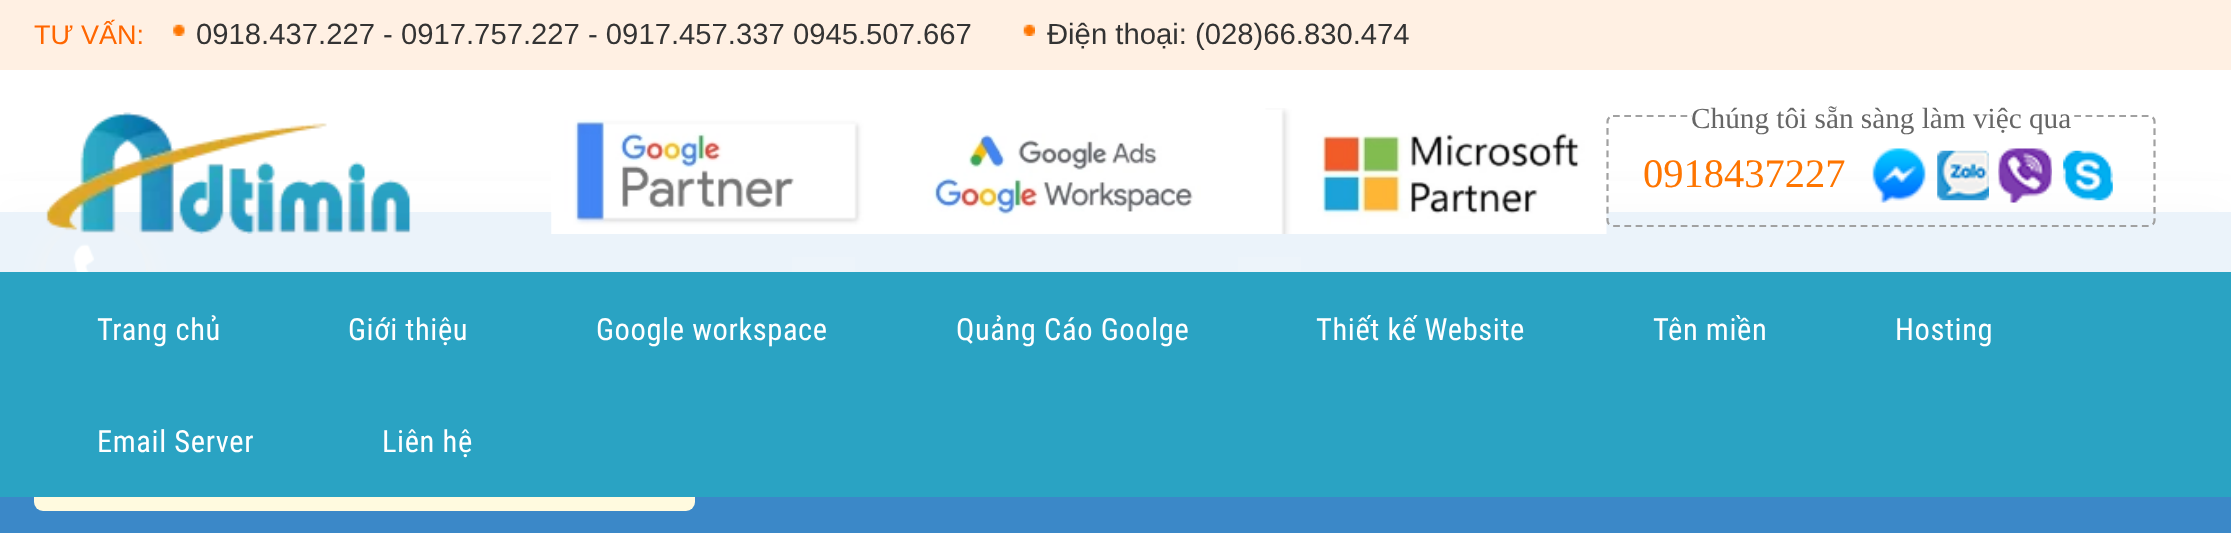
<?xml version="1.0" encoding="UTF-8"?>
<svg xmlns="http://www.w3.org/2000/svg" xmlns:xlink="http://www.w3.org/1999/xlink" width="2231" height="533">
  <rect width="100%" height="100%" fill="#ffffff" />
  <rect width="2231" height="70" fill="#fff0e3" />
  <image x="173" y="24" width="12" height="12" xlink:href="image1.png" />
  <image x="1023" y="24" width="12" height="12" xlink:href="image2.png" />
  <rect x="2" y="209" width="2228" height="318" fill="#000000" fill-opacity="0.18" filter="blur(18px)" />
  <rect y="212" width="2231" height="321" fill="#3b88c8" />
  <rect x="792" y="257" width="63" height="15" fill="#498fc9" />
  <rect x="1238" y="257" width="63" height="15" fill="#498fc9" />
  <rect x="45" y="230" width="101" height="101" rx="50.5" fill="#888888" filter="blur(11px)" />
  <circle cx="95.5" cy="273.5" r="50.5" fill="#3d89c7" />
  <image x="73" y="243" width="22" height="29" xlink:href="image9.png" />
  <rect y="181" width="2231" height="91" fill="#ffffff" fill-opacity="0.9" />
  <image x="46" y="112" width="365" height="122" xlink:href="image3.png" />
  <image x="551" y="108" width="1056" height="126" xlink:href="image4.png" />
  <path d="M 1613 116 h 536 c 3 0 5.5 2.5 5.5 5.5 v 99 c 0 3 -2.5 5.5 -5.5 5.5 h -536 c -3 0 -5.5 -2.5 -5.5 -5.5 v -99 c 0 -3 2.5 -5.5 5.5 -5.5 z" fill="none" stroke="#a1a1a1" stroke-width="2.2" stroke-dasharray="6.75 4.5" />
  <rect x="1692" y="114" width="378" height="4" fill="#ffffff" />
  <image x="1872" y="148" width="54" height="55" xlink:href="image5.png" />
  <image x="1937" y="150" width="52" height="51" xlink:href="image6.png" />
  <image x="1998" y="148" width="54" height="55" xlink:href="image7.png" />
  <image x="2063" y="150" width="50" height="51" xlink:href="image8.png" />
  <rect x="34" y="383" width="661" height="128" rx="9" fill="#fffadf" />
  <rect y="272" width="2231" height="225" fill="#2aa3c3" />
  <text x="34" y="44" style="font-family: Liberation Sans; font-size: 27px; fill: #ff6600">TƯ VẤN:</text>
  <text x="196" y="44" style="font-family: Liberation Sans; font-size: 29.25px; fill: #333333">0918.437.227 - 0917.757.227 - 0917.457.337 0945.507.667</text>
  <text x="1047" y="44" style="font-family: Liberation Sans; font-size: 29.25px; fill: #333333">Điện thoại: (028)66.830.474</text>
  <text x="1691" y="128" style="font-family: Liberation Serif; font-size: 29.25px; fill: #666666">Chúng tôi sẵn sàng làm việc qua</text>
  <text x="1643" y="187" style="font-family: Liberation Serif; font-size: 40.5px; fill: #fe7500">0918437227</text>
  <text x="97" y="340" style="font-family: Roboto Condensed; font-size: 30.5px; letter-spacing: 0.6px; fill: #ffffff">Trang chủ</text>
  <text x="348" y="340" style="font-family: Roboto Condensed; font-size: 30.5px; letter-spacing: 0.6px; fill: #ffffff">Giới thiệu</text>
  <text x="596" y="340" style="font-family: Roboto Condensed; font-size: 30.5px; letter-spacing: 0.6px; fill: #ffffff">Google workspace</text>
  <text x="956" y="340" style="font-family: Roboto Condensed; font-size: 30.5px; letter-spacing: 0.6px; fill: #ffffff">Quảng Cáo Goolge</text>
  <text x="1316" y="340" style="font-family: Roboto Condensed; font-size: 30.5px; letter-spacing: 0.6px; fill: #ffffff">Thiết kế Website</text>
  <text x="1653" y="340" style="font-family: Roboto Condensed; font-size: 30.5px; letter-spacing: 0.6px; fill: #ffffff">Tên miền</text>
  <text x="1895" y="340" style="font-family: Roboto Condensed; font-size: 30.5px; letter-spacing: 0.6px; fill: #ffffff">Hosting</text>
  <text x="97" y="452" style="font-family: Roboto Condensed; font-size: 30.5px; letter-spacing: 0.6px; fill: #ffffff">Email Server</text>
  <text x="382" y="452" style="font-family: Roboto Condensed; font-size: 30.5px; letter-spacing: 0.6px; fill: #ffffff">Liên hệ</text>
</svg>
